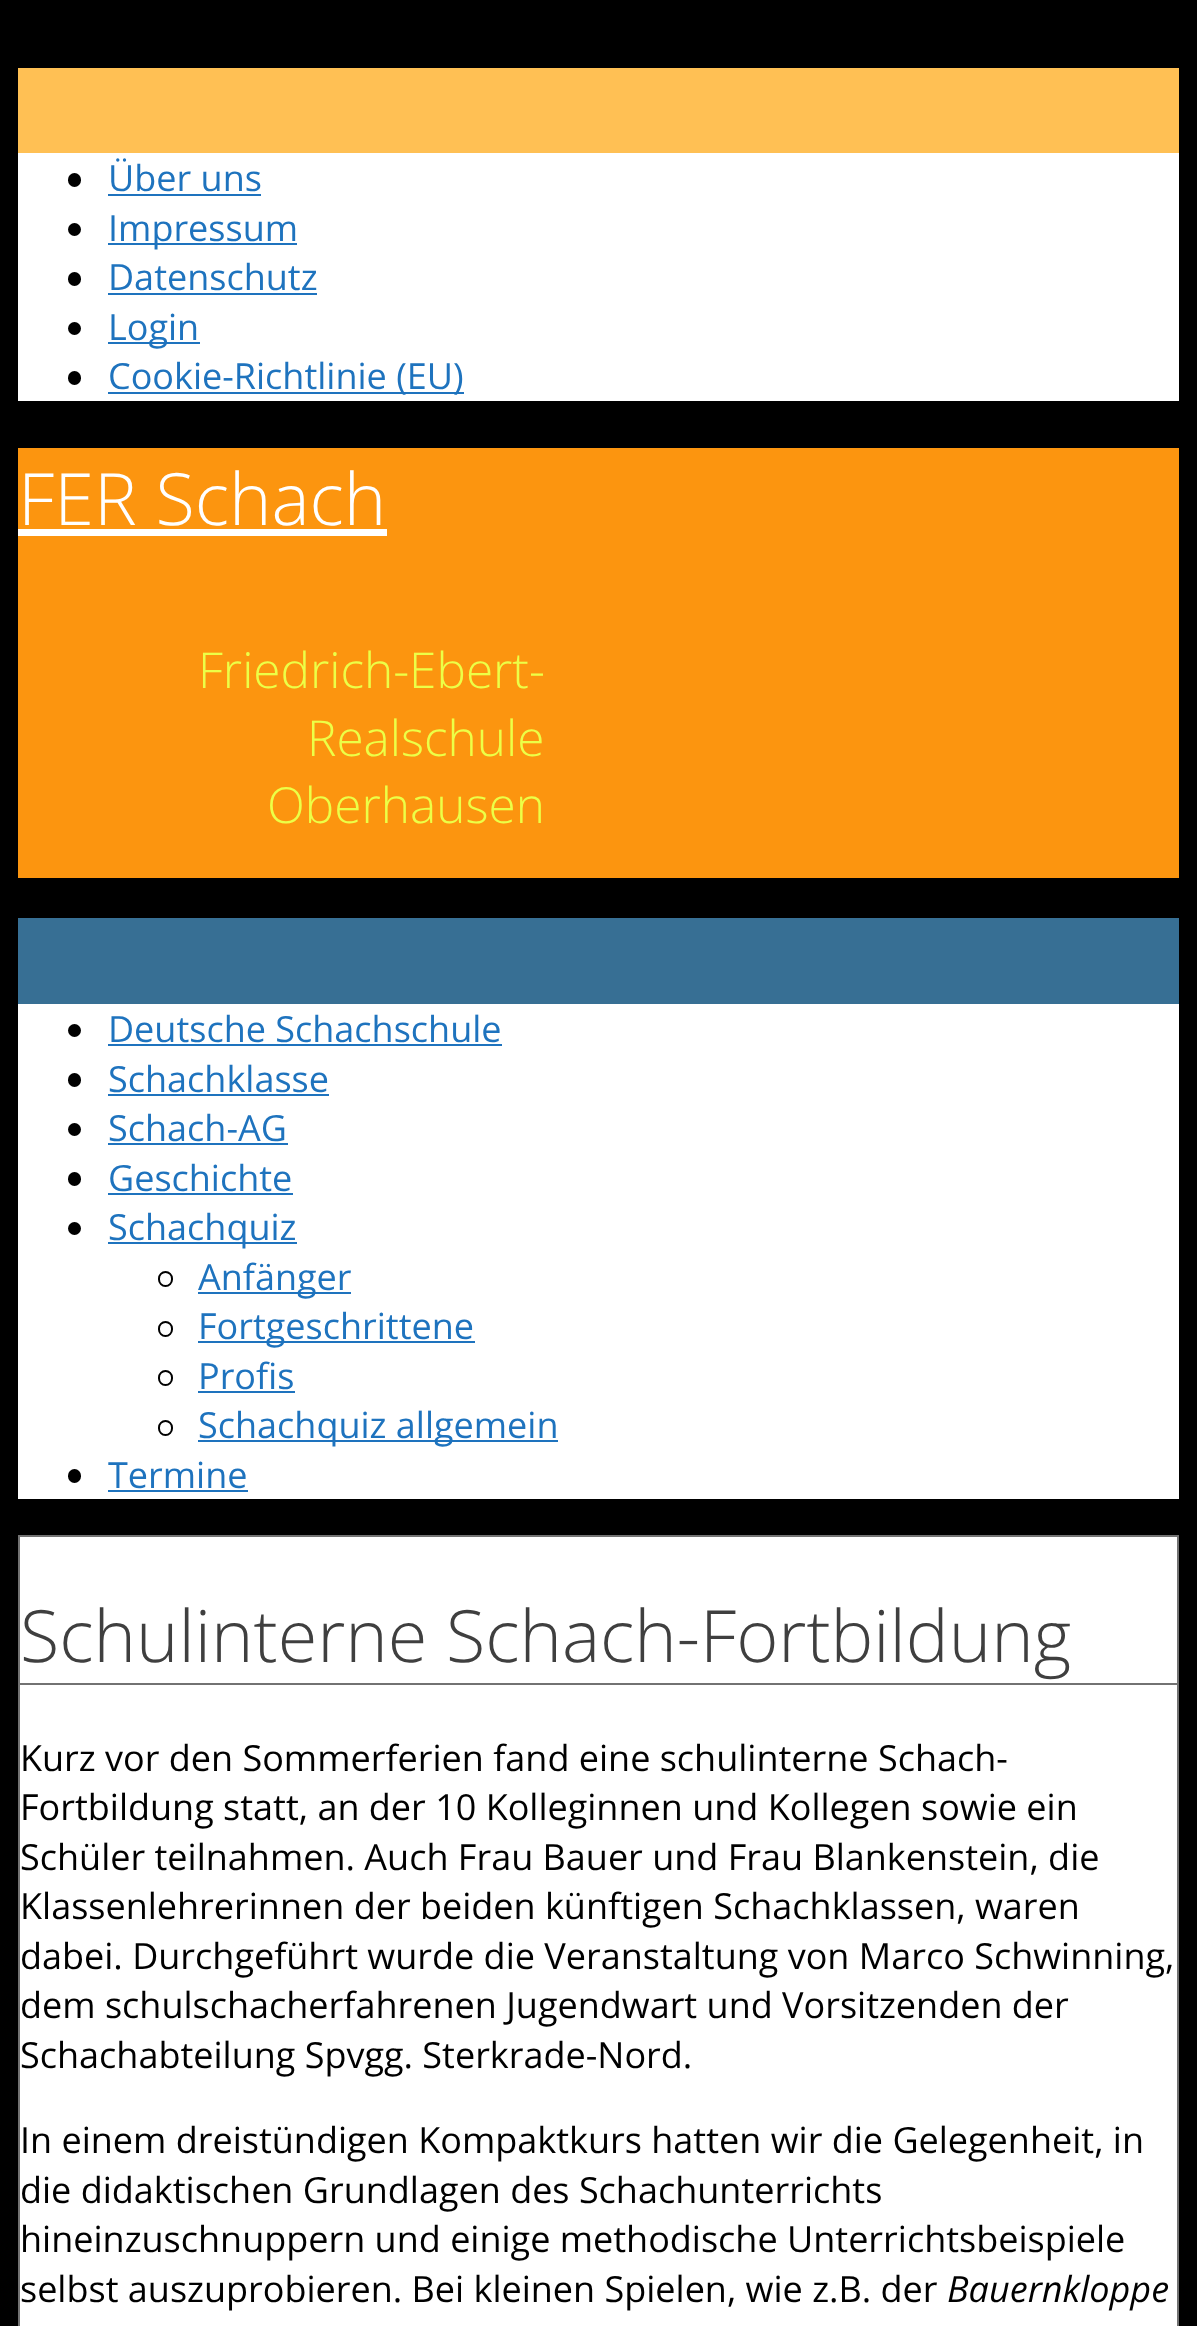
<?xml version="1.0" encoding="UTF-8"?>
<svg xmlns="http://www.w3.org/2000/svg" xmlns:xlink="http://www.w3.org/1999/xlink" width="1197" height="2326">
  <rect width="100%" height="100%" fill="#000000" />
  <rect x="18" y="68" width="1161" height="85" fill="#ffc054" />
  <rect x="18" y="153" width="1161" height="248" fill="#ffffff" />
  <rect x="68" y="173" width="13" height="14" rx="6.5" fill="#000000" />
  <rect x="108" y="194" width="153" height="2" fill="#1e73be" />
  <circle cx="74.5" cy="229.5" r="6.5" fill="#000000" />
  <rect x="108" y="243" width="189" height="2" fill="#1e73be" />
  <rect x="68" y="272" width="13" height="14" rx="6.5" fill="#000000" />
  <rect x="108" y="293" width="209" height="2" fill="#1e73be" />
  <circle cx="74.5" cy="328.5" r="6.5" fill="#000000" />
  <rect x="108" y="342" width="92" height="2" fill="#1e73be" />
  <rect x="68" y="371" width="13" height="14" rx="6.5" fill="#000000" />
  <rect x="108" y="392" width="356" height="2" fill="#1e73be" />
  <rect x="18" y="448" width="1161" height="430" fill="#fc950f" />
  <rect x="18" y="529" width="369" height="7" fill="#ffffff" />
  <rect x="18" y="918" width="1161" height="86" fill="#376f94" />
  <rect x="18" y="1004" width="1161" height="495" fill="#ffffff" />
  <circle cx="74.5" cy="1030.5" r="6.5" fill="#000000" />
  <rect x="108" y="1044" width="394" height="2" fill="#1e73be" />
  <rect x="68" y="1073" width="13" height="14" rx="6.5" fill="#000000" />
  <rect x="108" y="1094" width="221" height="2" fill="#1e73be" />
  <circle cx="74.5" cy="1129.5" r="6.5" fill="#000000" />
  <rect x="108" y="1143" width="180" height="2" fill="#1e73be" />
  <rect x="68" y="1172" width="13" height="14" rx="6.5" fill="#000000" />
  <rect x="108" y="1193" width="185" height="2" fill="#1e73be" />
  <circle cx="74.5" cy="1228.5" r="6.5" fill="#000000" />
  <rect x="108" y="1242" width="189" height="2" fill="#1e73be" />
  <rect x="159" y="1272" width="13" height="14" rx="6.5" fill="none" stroke="#000000" stroke-width="2" />
  <rect x="198" y="1292" width="153" height="2" fill="#1e73be" />
  <rect x="159" y="1322" width="13" height="14" rx="6.5" fill="none" stroke="#000000" stroke-width="2" />
  <rect x="198" y="1341" width="277" height="2" fill="#1e73be" />
  <rect x="159" y="1371" width="13" height="14" rx="6.5" fill="none" stroke="#000000" stroke-width="2" />
  <rect x="198" y="1391" width="97" height="2" fill="#1e73be" />
  <rect x="159" y="1421" width="13" height="14" rx="6.5" fill="none" stroke="#000000" stroke-width="2" />
  <rect x="198" y="1440" width="360" height="2" fill="#1e73be" />
  <rect x="68" y="1469" width="13" height="14" rx="6.5" fill="#000000" />
  <rect x="108" y="1490" width="140" height="2" fill="#1e73be" />
  <rect x="19" y="1536" width="1159" height="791" fill="#ffffff" stroke="#727272" stroke-width="2" />
  <rect x="20" y="1683" width="1157" height="2" fill="#727272" />
  <text x="108" y="191" style="font-family: Open Sans; font-size: 36px; fill: #1e73be">Über uns</text>
  <text x="108" y="241" style="font-family: Open Sans; font-size: 36px; fill: #1e73be">Impressum</text>
  <text x="108" y="290" style="font-family: Open Sans; font-size: 36px; fill: #1e73be">Datenschutz</text>
  <text x="108" y="340" style="font-family: Open Sans; font-size: 36px; fill: #1e73be">Login</text>
  <text x="108" y="389" style="font-family: Open Sans; font-size: 36px; fill: #1e73be">Cookie-Richtlinie (EU)</text>
  <text x="18" y="525" style="font-family: Open Sans; font-size: 72px; font-weight: 300; fill: #ffffff">FER Schach</text>
  <text x="198" y="688" style="font-family: Open Sans; font-size: 49.5px; font-weight: 300; fill: #ecff47">Friedrich-Ebert-</text>
  <text x="307" y="756" style="font-family: Open Sans; font-size: 49.5px; font-weight: 300; fill: #ecff47">Realschule</text>
  <text x="267" y="823" style="font-family: Open Sans; font-size: 49.5px; font-weight: 300; fill: #ecff47">Oberhausen</text>
  <text x="108" y="1042" style="font-family: Open Sans; font-size: 36px; fill: #1e73be">Deutsche Schachschule</text>
  <text x="108" y="1092" style="font-family: Open Sans; font-size: 36px; fill: #1e73be">Schachklasse</text>
  <text x="108" y="1141" style="font-family: Open Sans; font-size: 36px; fill: #1e73be">Schach-AG</text>
  <text x="108" y="1191" style="font-family: Open Sans; font-size: 36px; fill: #1e73be">Geschichte</text>
  <text x="108" y="1240" style="font-family: Open Sans; font-size: 36px; fill: #1e73be">Schachquiz</text>
  <text x="198" y="1290" style="font-family: Open Sans; font-size: 36px; fill: #1e73be">Anfänger</text>
  <text x="198" y="1339" style="font-family: Open Sans; font-size: 36px; fill: #1e73be">Fortgeschrittene</text>
  <text x="198" y="1389" style="font-family: Open Sans; font-size: 36px; fill: #1e73be">Profis</text>
  <text x="198" y="1438" style="font-family: Open Sans; font-size: 36px; fill: #1e73be">Schachquiz allgemein</text>
  <text x="108" y="1488" style="font-family: Open Sans; font-size: 36px; fill: #1e73be">Termine</text>
  <text x="20" y="1662" style="font-family: Open Sans; font-size: 72px; font-weight: 300; fill: #3f3f3f">Schulinterne Schach-Fortbildung</text>
  <text x="20" y="1771" style="font-family: Open Sans; font-size: 36px; fill: #000000">Kurz vor den Sommerferien fand eine schulinterne Schach-</text>
  <text x="20" y="1820" style="font-family: Open Sans; font-size: 36px; fill: #000000">Fortbildung statt, an der 10 Kolleginnen und Kollegen sowie ein</text>
  <text x="20" y="1870" style="font-family: Open Sans; font-size: 36px; fill: #000000">Schüler teilnahmen. Auch Frau Bauer und Frau Blankenstein, die</text>
  <text x="20" y="1919" style="font-family: Open Sans; font-size: 36px; fill: #000000">Klassenlehrerinnen der beiden künftigen Schachklassen, waren</text>
  <text x="20" y="1969" style="font-family: Open Sans; font-size: 36px; fill: #000000">dabei. Durchgeführt wurde die Veranstaltung von Marco Schwinning,</text>
  <text x="20" y="2018" style="font-family: Open Sans; font-size: 36px; fill: #000000">dem schulschacherfahrenen Jugendwart und Vorsitzenden der</text>
  <text x="20" y="2068" style="font-family: Open Sans; font-size: 36px; fill: #000000">Schachabteilung Spvgg. Sterkrade-Nord.</text>
  <text x="20" y="2153" style="font-family: Open Sans; font-size: 36px; fill: #000000">In einem dreistündigen Kompaktkurs hatten wir die Gelegenheit, in</text>
  <text x="20" y="2203" style="font-family: Open Sans; font-size: 36px; fill: #000000">die didaktischen Grundlagen des Schachunterrichts</text>
  <text x="20" y="2252" style="font-family: Open Sans; font-size: 36px; fill: #000000">hineinzuschnuppern und einige methodische Unterrichtsbeispiele</text>
  <text x="20" y="2302" style="font-family: Open Sans; font-size: 36px; fill: #000000">selbst auszuprobieren. Bei kleinen Spielen, wie z.B. der</text>
  <text x="947" y="2302" style="font-family: Open Sans; font-size: 36px; font-style: italic; fill: #000000">Bauernkloppe</text>
</svg>
